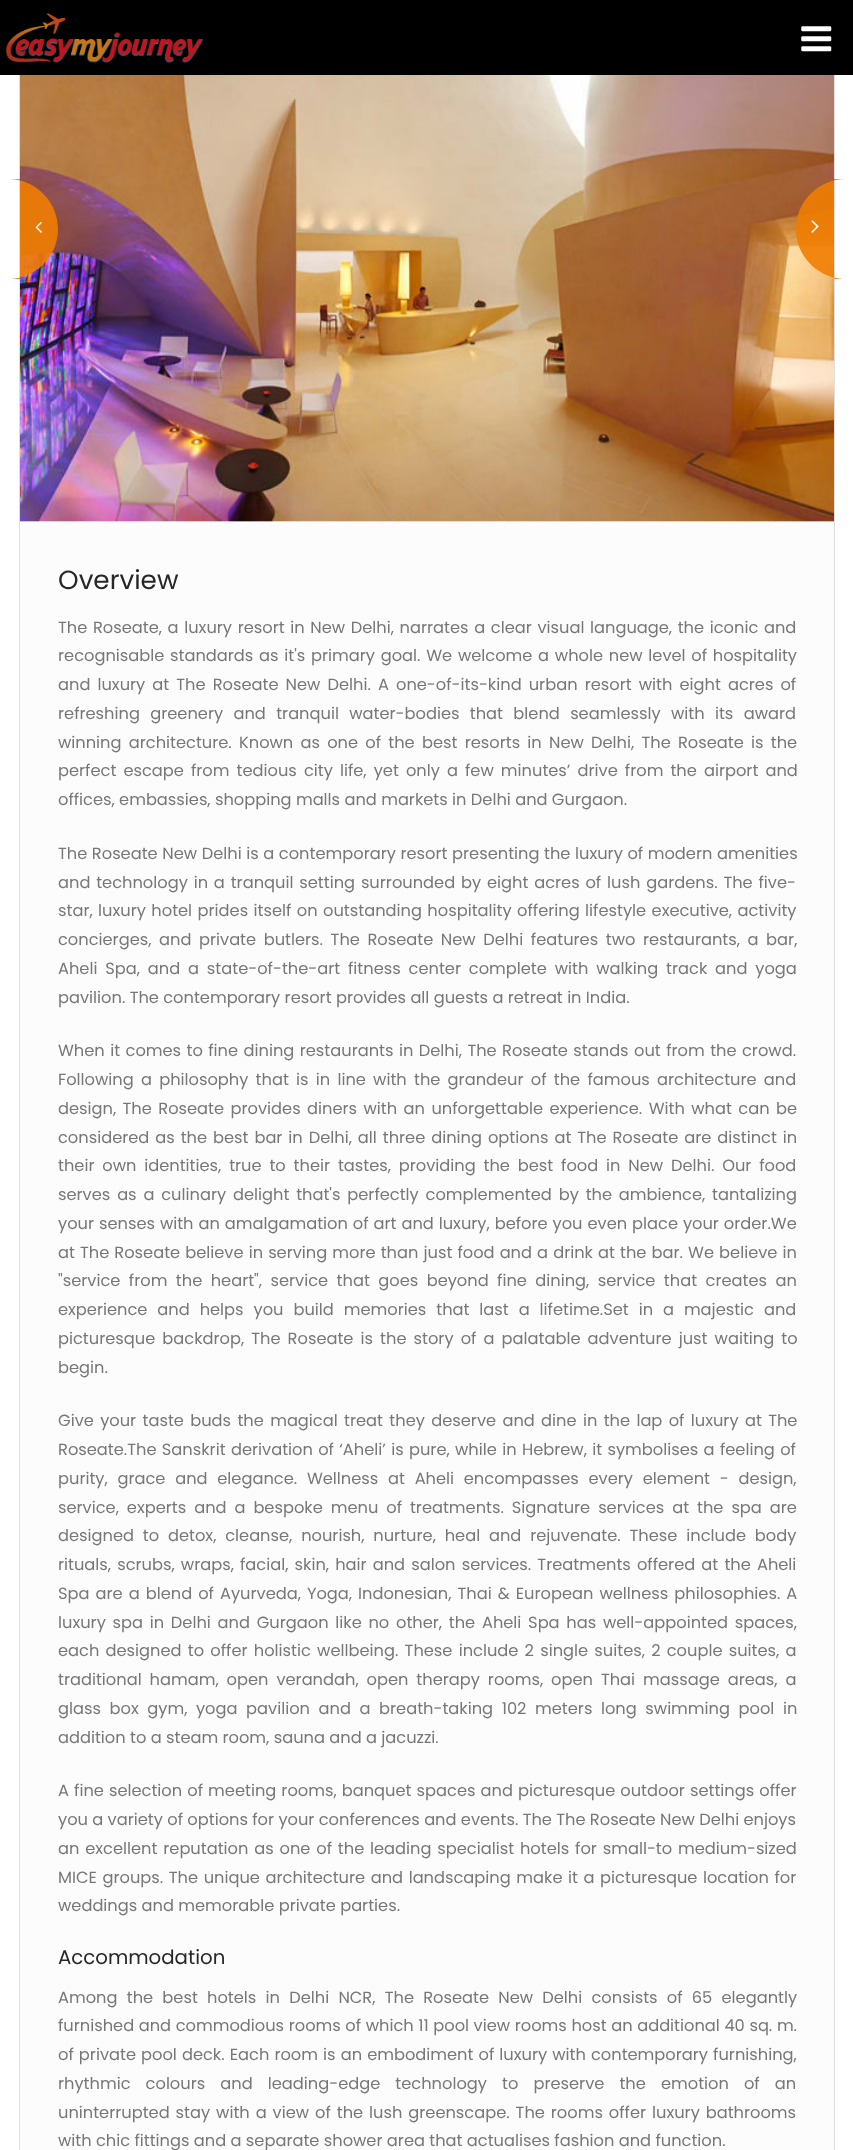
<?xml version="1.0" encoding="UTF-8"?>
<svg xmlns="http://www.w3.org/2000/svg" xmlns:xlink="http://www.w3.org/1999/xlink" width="853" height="2150">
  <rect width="100%" height="100%" fill="#ffffff" />
  <rect x="20" y="521" width="814" height="1629" fill="#fcfcfc" />
  <rect x="19.5" y="-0.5" width="815" height="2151" fill="none" stroke="#dfdfdf" />
  <rect width="853" height="75" fill="#000000" />
  <image x="5" y="13" width="199" height="50" xlink:href="image1.png" />
  <image x="801" y="26" width="31" height="26" xlink:href="image2.png" />
  <image x="20" y="75" width="814" height="447" xlink:href="image3.png" />
  <path d="M 20 179 h -12 c 27.5 0 50 22.5 50 50 c 0 27.5 -22.5 50 -50 50 h 12 z" fill="#ef7d02" fill-opacity="0.9" />
  <image x="35" y="221" width="7" height="12" xlink:href="image4.png" />
  <path d="M 846 179 h -12 v 100 h 12 c -27.5 0 -50 -22.5 -50 -50 c 0 -27.5 22.5 -50 50 -50 z" fill="#ef7d02" fill-opacity="0.9" />
  <image x="811" y="220" width="8" height="13" xlink:href="image5.png" />
  <text x="58" y="589" style="font-family: Poppins; font-size: 26.25px; fill: #272727">Overview</text>
  <text x="58" y="633" word-spacing="1.3" style="font-family: Poppins; font-size: 16.25px; fill: #777777">The Roseate, a luxury resort in New Delhi, narrates a clear visual language, the iconic and</text>
  <text x="58" y="661" word-spacing="1.4" style="font-family: Poppins; font-size: 16.25px; fill: #777777">recognisable standards as it's primary goal. We welcome a whole new level of hospitality</text>
  <text x="58" y="690" word-spacing="2.75" style="font-family: Poppins; font-size: 16.25px; fill: #777777">and luxury at The Roseate New Delhi. A one-of-its-kind urban resort with eight acres of</text>
  <text x="58" y="719" word-spacing="6" style="font-family: Poppins; font-size: 16.25px; fill: #777777">refreshing greenery and tranquil water-bodies that blend seamlessly with its award</text>
  <text x="58" y="748" word-spacing="2.9" style="font-family: Poppins; font-size: 16.25px; fill: #777777">winning architecture. Known as one of the best resorts in New Delhi, The Roseate is the</text>
  <text x="58" y="776" word-spacing="2.75" style="font-family: Poppins; font-size: 16.25px; fill: #777777">perfect escape from tedious city life, yet only a few minutes’ drive from the airport and</text>
  <text x="58" y="805" style="font-family: Poppins; font-size: 16.25px; fill: #777777">offices, embassies, shopping malls and markets in Delhi and Gurgaon.</text>
  <text x="58" y="859" word-spacing="0.25" style="font-family: Poppins; font-size: 16.25px; fill: #777777">The Roseate New Delhi is a contemporary resort presenting the luxury of modern amenities</text>
  <text x="58" y="888" word-spacing="1.5" style="font-family: Poppins; font-size: 16.25px; fill: #777777">and technology in a tranquil setting surrounded by eight acres of lush gardens. The five-</text>
  <text x="58" y="916" word-spacing="1.1" style="font-family: Poppins; font-size: 16.25px; fill: #777777">star, luxury hotel prides itself on outstanding hospitality offering lifestyle executive, activity</text>
  <text x="58" y="945" word-spacing="3.25" style="font-family: Poppins; font-size: 16.25px; fill: #777777">concierges, and private butlers. The Roseate New Delhi features two restaurants, a bar,</text>
  <text x="58" y="974" word-spacing="3.5" style="font-family: Poppins; font-size: 16.25px; fill: #777777">Aheli Spa, and a state-of-the-art fitness center complete with walking track and yoga</text>
  <text x="58" y="1003" style="font-family: Poppins; font-size: 16.25px; fill: #777777">pavilion. The contemporary resort provides all guests a retreat in India.</text>
  <text x="58" y="1056" word-spacing="1.1" style="font-family: Poppins; font-size: 16.25px; fill: #777777">When it comes to fine dining restaurants in Delhi, The Roseate stands out from the crowd.</text>
  <text x="58" y="1085" word-spacing="2.9" style="font-family: Poppins; font-size: 16.25px; fill: #777777">Following a philosophy that is in line with the grandeur of the famous architecture and</text>
  <text x="58" y="1114" word-spacing="2.1" style="font-family: Poppins; font-size: 16.25px; fill: #777777">design, The Roseate provides diners with an unforgettable experience. With what can be</text>
  <text x="58" y="1143" word-spacing="1.6" style="font-family: Poppins; font-size: 16.25px; fill: #777777">considered as the best bar in Delhi, all three dining options at The Roseate are distinct in</text>
  <text x="58" y="1171" word-spacing="3.5" style="font-family: Poppins; font-size: 16.25px; fill: #777777">their own identities, true to their tastes, providing the best food in New Delhi. Our food</text>
  <text x="58" y="1200" word-spacing="2.5" style="font-family: Poppins; font-size: 16.25px; fill: #777777">serves as a culinary delight that's perfectly complemented by the ambience, tantalizing</text>
  <text x="58" y="1229" word-spacing="0.6" style="font-family: Poppins; font-size: 16.25px; fill: #777777">your senses with an amalgamation of art and luxury, before you even place your order.We</text>
  <text x="58" y="1258" word-spacing="0.75" style="font-family: Poppins; font-size: 16.25px; fill: #777777">at The Roseate believe in serving more than just food and a drink at the bar. We believe in</text>
  <text x="58" y="1286" word-spacing="4.1" style="font-family: Poppins; font-size: 16.25px; fill: #777777">"service from the heart", service that goes beyond fine dining, service that creates an</text>
  <text x="58" y="1315" word-spacing="5.6" style="font-family: Poppins; font-size: 16.25px; fill: #777777">experience and helps you build memories that last a lifetime.Set in a majestic and</text>
  <text x="58" y="1344" word-spacing="2.75" style="font-family: Poppins; font-size: 16.25px; fill: #777777">picturesque backdrop, The Roseate is the story of a palatable adventure just waiting to</text>
  <text x="58" y="1373" style="font-family: Poppins; font-size: 16.25px; fill: #777777">begin.</text>
  <text x="58" y="1426" word-spacing="2" style="font-family: Poppins; font-size: 16.25px; fill: #777777">Give your taste buds the magical treat they deserve and dine in the lap of luxury at The</text>
  <text x="58" y="1455" word-spacing="1" style="font-family: Poppins; font-size: 16.25px; fill: #777777">Roseate.The Sanskrit derivation of ‘Aheli’ is pure, while in Hebrew, it symbolises a feeling of</text>
  <text x="58" y="1484" word-spacing="5.4" style="font-family: Poppins; font-size: 16.25px; fill: #777777">purity, grace and elegance. Wellness at Aheli encompasses every element - design,</text>
  <text x="58" y="1513" word-spacing="3.6" style="font-family: Poppins; font-size: 16.25px; fill: #777777">service, experts and a bespoke menu of treatments. Signature services at the spa are</text>
  <text x="58" y="1541" word-spacing="4.5" style="font-family: Poppins; font-size: 16.25px; fill: #777777">designed to detox, cleanse, nourish, nurture, heal and rejuvenate. These include body</text>
  <text x="58" y="1570" word-spacing="1.8" style="font-family: Poppins; font-size: 16.25px; fill: #777777">rituals, scrubs, wraps, facial, skin, hair and salon services. Treatments offered at the Aheli</text>
  <text x="58" y="1599" word-spacing="1.7" style="font-family: Poppins; font-size: 16.25px; fill: #777777">Spa are a blend of Ayurveda, Yoga, Indonesian, Thai &amp; European wellness philosophies. A</text>
  <text x="58" y="1628" word-spacing="2.4" style="font-family: Poppins; font-size: 16.25px; fill: #777777">luxury spa in Delhi and Gurgaon like no other, the Aheli Spa has well-appointed spaces,</text>
  <text x="58" y="1656" word-spacing="1.9" style="font-family: Poppins; font-size: 16.25px; fill: #777777">each designed to offer holistic wellbeing. These include 2 single suites, 2 couple suites, a</text>
  <text x="58" y="1685" word-spacing="3.6" style="font-family: Poppins; font-size: 16.25px; fill: #777777">traditional hamam, open verandah, open therapy rooms, open Thai massage areas, a</text>
  <text x="58" y="1714" word-spacing="4.25" style="font-family: Poppins; font-size: 16.25px; fill: #777777">glass box gym, yoga pavilion and a breath-taking 102 meters long swimming pool in</text>
  <text x="58" y="1743" style="font-family: Poppins; font-size: 16.25px; fill: #777777">addition to a steam room, sauna and a jacuzzi.</text>
  <text x="58" y="1796" word-spacing="0.75" style="font-family: Poppins; font-size: 16.25px; fill: #777777">A fine selection of meeting rooms, banquet spaces and picturesque outdoor settings offer</text>
  <text x="58" y="1825" style="font-family: Poppins; font-size: 16.25px; fill: #777777">you a variety of options for your conferences and events. The The Roseate New Delhi enjoys</text>
  <text x="58" y="1854" word-spacing="1.5" style="font-family: Poppins; font-size: 16.25px; fill: #777777">an excellent reputation as one of the leading specialist hotels for small-to medium-sized</text>
  <text x="58" y="1883" word-spacing="1.25" style="font-family: Poppins; font-size: 16.25px; fill: #777777">MICE groups. The unique architecture and landscaping make it a picturesque location for</text>
  <text x="58" y="1911" style="font-family: Poppins; font-size: 16.25px; fill: #777777">weddings and memorable private parties.</text>
  <text x="58" y="1964" style="font-family: Poppins; font-size: 19.75px; fill: #272727">Accommodation</text>
  <text x="58" y="2003" word-spacing="4.9" style="font-family: Poppins; font-size: 16.25px; fill: #777777">Among the best hotels in Delhi NCR, The Roseate New Delhi consists of 65 elegantly</text>
  <text x="58" y="2031" word-spacing="0.25" style="font-family: Poppins; font-size: 16.25px; fill: #777777">furnished and commodious rooms of which 11 pool view rooms host an additional 40 sq. m.</text>
  <text x="58" y="2060" word-spacing="0.75" style="font-family: Poppins; font-size: 16.25px; fill: #777777">of private pool deck. Each room is an embodiment of luxury with contemporary furnishing,</text>
  <text x="58" y="2089" word-spacing="10.75" style="font-family: Poppins; font-size: 16.25px; fill: #777777">rhythmic colours and leading-edge technology to preserve the emotion of an</text>
  <text x="58" y="2118" word-spacing="1.6" style="font-family: Poppins; font-size: 16.25px; fill: #777777">uninterrupted stay with a view of the lush greenscape. The rooms offer luxury bathrooms</text>
  <text x="58" y="2146" style="font-family: Poppins; font-size: 16.25px; fill: #777777">with chic fittings and a separate shower area that actualises fashion and function.</text>
</svg>
